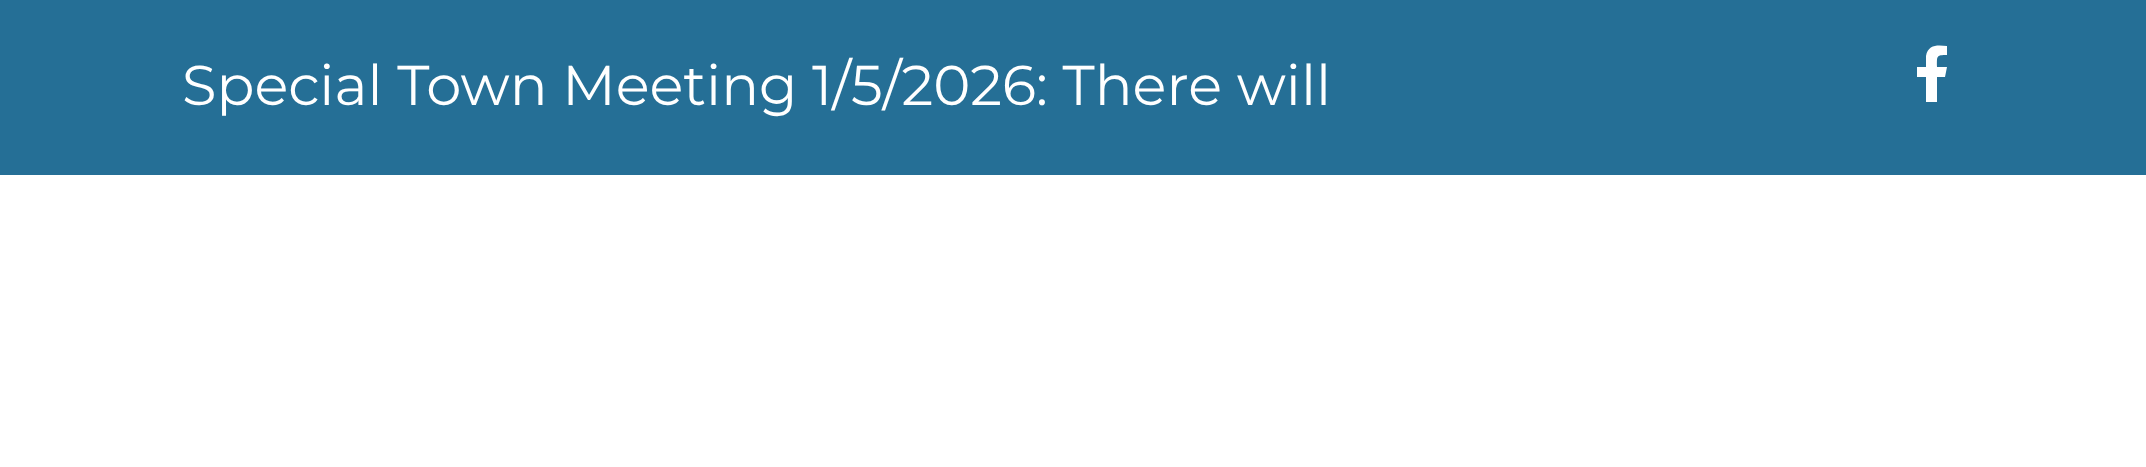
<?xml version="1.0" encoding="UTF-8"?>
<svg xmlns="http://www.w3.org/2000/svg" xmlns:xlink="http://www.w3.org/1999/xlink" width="2146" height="467">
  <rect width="100%" height="100%" fill="#ffffff" />
  <rect width="2146" height="175" fill="#256f96" />
  <path d="M 1945 77 h -8 v 25 h -11 v -25 h -9 v -10 h 9 v -11 c 2 -12 12 -11 21 -10 v 9 c -11 0 -10 1 -10 12 h 10 z" fill="#ffffff" />
  <text x="182" y="105" style="font-family: Montserrat; font-size: 56px; fill: #ffffff">Special Town Meeting 1/5/2026: There will</text>
</svg>
